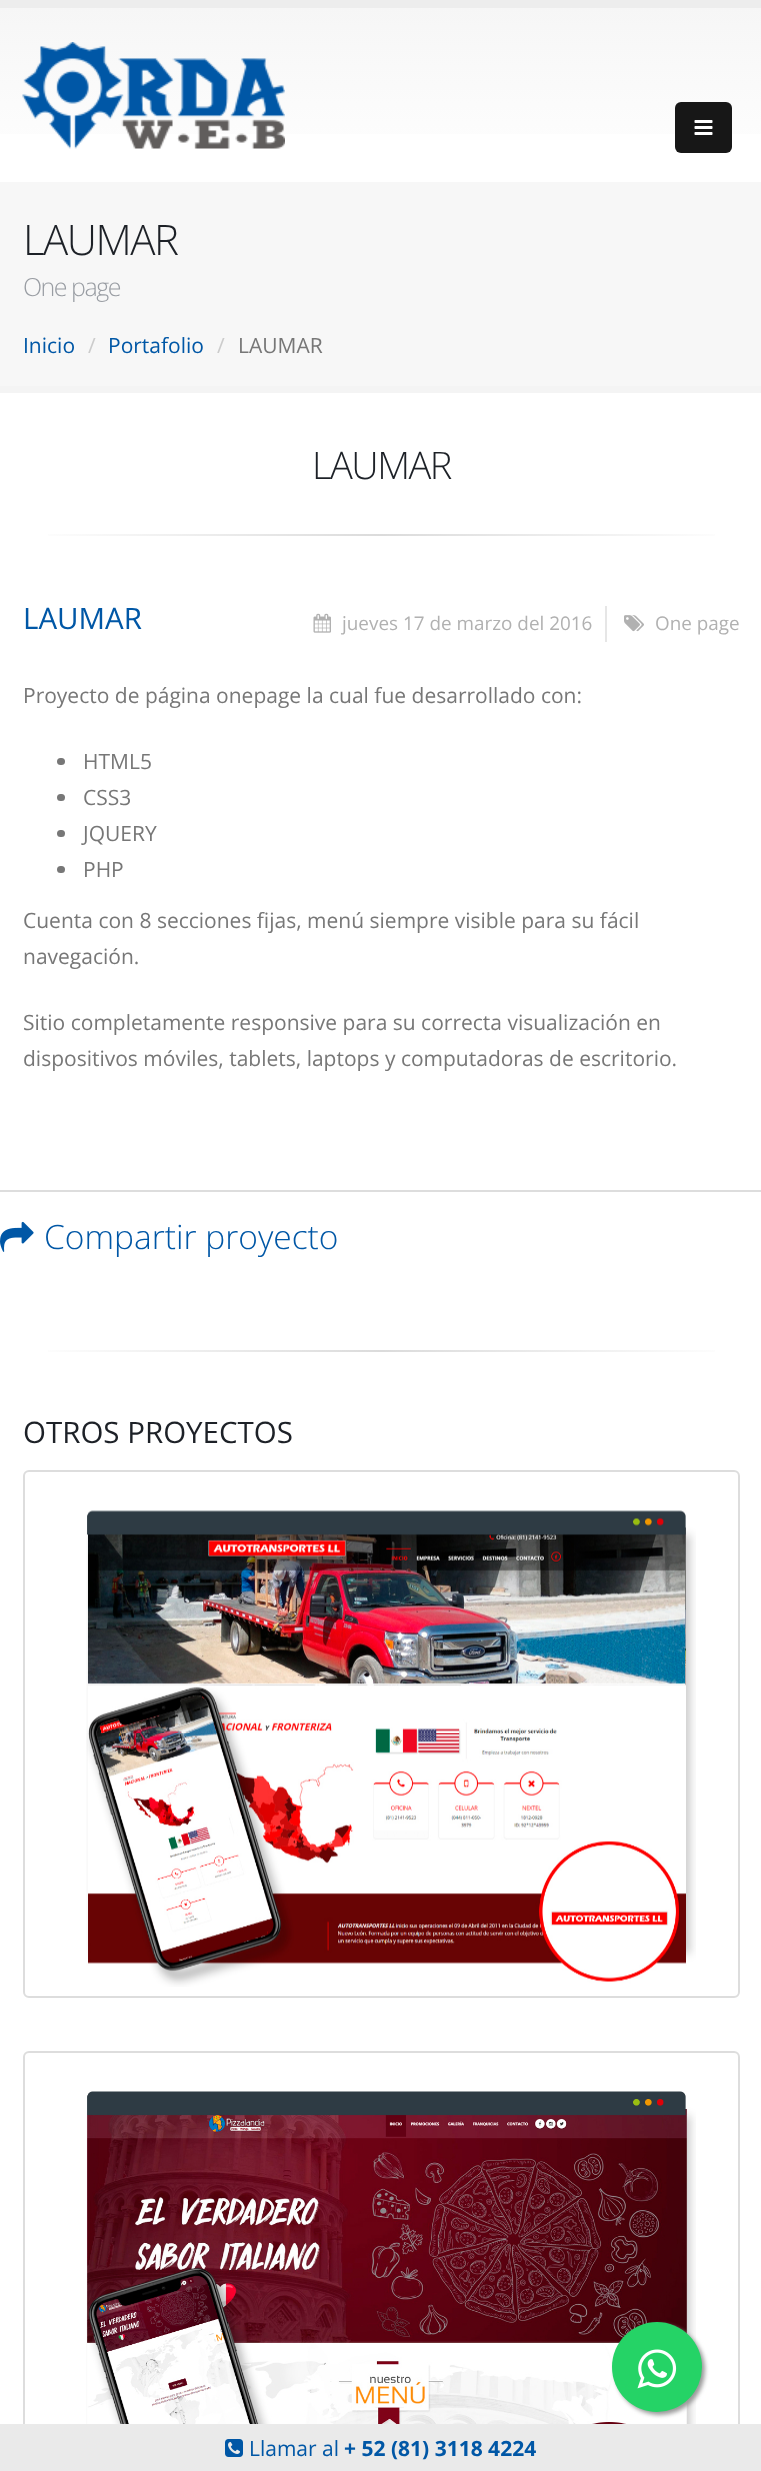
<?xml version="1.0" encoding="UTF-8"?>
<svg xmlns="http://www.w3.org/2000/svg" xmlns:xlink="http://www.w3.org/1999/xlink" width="761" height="2471">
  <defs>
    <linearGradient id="g1" gradientUnits="userSpaceOnUse" x1="381" y1="7.5" x2="381" y2="182"><stop offset="0" stop-color="#f6f6f6" /><stop offset="1" stop-color="#ffffff" /></linearGradient>
    <linearGradient id="g2" gradientUnits="userSpaceOnUse" x1="23" y1="535" x2="740" y2="535"><stop offset="0" stop-color="#ffffff" /><stop offset="0.5" stop-color="#dbdbdb" /><stop offset="1" stop-color="#ffffff" /></linearGradient>
    <linearGradient id="g3" gradientUnits="userSpaceOnUse" x1="23" y1="1351" x2="740" y2="1351"><stop offset="0" stop-color="#ffffff" /><stop offset="0.5" stop-color="#dbdbdb" /><stop offset="1" stop-color="#ffffff" /></linearGradient>
  </defs>
  <rect width="100%" height="100%" fill="#ffffff" />
  <rect y="8" width="761" height="126" fill="url(#g1)" />
  <rect width="761" height="8" fill="#ededed" />
  <image x="22" y="42" width="263" height="107" xlink:href="image1.png" />
  <rect x="675" y="102" width="57" height="51" rx="6" fill="#171717" />
  <image x="694" y="120" width="19" height="15" xlink:href="image2.png" />
  <rect y="182" width="761" height="204" fill="#f7f7f7" />
  <rect y="386" width="761" height="7" fill="#f4f4f4" />
  <rect x="48" y="534" width="667" height="2" fill="url(#g2)" />
  <rect x="605" y="606" width="2" height="36" fill="#e6e6e6" />
  <image x="313" y="613" width="18" height="20" xlink:href="image3.png" />
  <image x="624" y="615" width="20" height="17" xlink:href="image4.png" />
  <rect x="57" y="758" width="8" height="7" rx="3.5" fill="#777777" />
  <rect x="57" y="794" width="8" height="7" rx="3.5" fill="#777777" />
  <rect x="57" y="830" width="8" height="7" rx="3.5" fill="#777777" />
  <rect x="57" y="866" width="8" height="7" rx="3.5" fill="#777777" />
  <rect y="1190" width="761" height="2" fill="#dddddd" />
  <image x="0" y="1221" width="34" height="31" xlink:href="image5.png" />
  <rect x="48" y="1350" width="667" height="2" fill="url(#g3)" />
  <rect x="24" y="1471" width="715" height="526" rx="5" fill="none" stroke="#dddddd" stroke-width="2" />
  <image x="86" y="1510" width="610" height="477" xlink:href="image6.png" />
  <rect x="24" y="2052" width="715" height="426" rx="5" fill="none" stroke="#dddddd" stroke-width="2" />
  <image x="86" y="2091" width="610" height="333" xlink:href="image7.png" />
  <rect x="615" y="2325" width="90" height="90" rx="45" fill="#999999" filter="blur(2px)" />
  <circle cx="657" cy="2367" r="45" fill="#25d366" />
  <image x="637" y="2349" width="40" height="40" xlink:href="image8.png" />
  <rect y="2424" width="761" height="47" fill="#eaeaea" />
  <image x="225" y="2439" width="18" height="18" xlink:href="image9.png" />
  <text x="23" y="255" style="font-family: Open Sans; font-size: 42px; font-weight: 300; letter-spacing: -1.5px; fill: #1d2127">LAUMAR</text>
  <text x="23" y="296" style="font-family: Open Sans; font-size: 25px; font-weight: 300; letter-spacing: -1.5px; fill: #999da3">One page</text>
  <text x="23" y="353" style="font-family: Open Sans; font-size: 21px; fill: #0057a6">Inicio</text>
  <text x="88" y="353" style="font-family: Open Sans; font-size: 21px; fill: #cccccc">/</text>
  <text x="108" y="353" style="font-family: Open Sans; font-size: 21px; fill: #0057a6">Portafolio</text>
  <text x="217" y="353" style="font-family: Open Sans; font-size: 21px; fill: #cccccc">/</text>
  <text x="238" y="353" style="font-family: Open Sans; font-size: 21px; fill: #777777">LAUMAR</text>
  <text x="312" y="479" style="font-family: Open Sans; font-size: 38px; font-weight: 300; letter-spacing: -1.5px; fill: #1d2127">LAUMAR</text>
  <text x="23" y="629" style="font-family: Open Sans; font-size: 29.5px; fill: #0057a6">LAUMAR</text>
  <text x="342" y="630" style="font-family: Open Sans; font-size: 18.9px; fill: #b1b1b1">jueves 17 de marzo del 2016</text>
  <text x="655" y="630" style="font-family: Open Sans; font-size: 18.9px; fill: #b1b1b1">One page</text>
  <text x="23" y="703" style="font-family: Open Sans; font-size: 21px; fill: #777777">Proyecto de página onepage la cual fue desarrollado con:</text>
  <text x="83" y="769" style="font-family: Open Sans; font-size: 21px; fill: #777777">HTML5</text>
  <text x="83" y="805" style="font-family: Open Sans; font-size: 21px; fill: #777777">CSS3</text>
  <text x="83" y="841" style="font-family: Open Sans; font-size: 21px; fill: #777777">JQUERY</text>
  <text x="83" y="877" style="font-family: Open Sans; font-size: 21px; fill: #777777">PHP</text>
  <text x="23" y="928" style="font-family: Open Sans; font-size: 21px; fill: #777777">Cuenta con 8 secciones fijas, menú siempre visible para su fácil</text>
  <text x="23" y="964" style="font-family: Open Sans; font-size: 21px; fill: #777777">navegación.</text>
  <text x="23" y="1030" style="font-family: Open Sans; font-size: 21px; fill: #777777">Sitio completamente responsive para su correcta visualización en</text>
  <text x="23" y="1066" style="font-family: Open Sans; font-size: 21px; fill: #777777">dispositivos móviles, tablets, laptops y computadoras de escritorio.</text>
  <text x="44" y="1249" style="font-family: Open Sans; font-size: 33.5px; font-weight: 300; fill: #0057a6">Compartir proyecto</text>
  <text x="23" y="1443" style="font-family: Open Sans; font-size: 29.5px; fill: #1d2127">OTROS PROYECTOS</text>
  <text x="249" y="2456" style="font-family: Open Sans; font-size: 21px; fill: #0057a6">Llamar al</text>
  <text x="344" y="2456" style="font-family: Open Sans; font-size: 21px; font-weight: bold; fill: #0057a6">+ 52 (81) 3118 4224</text>
</svg>
